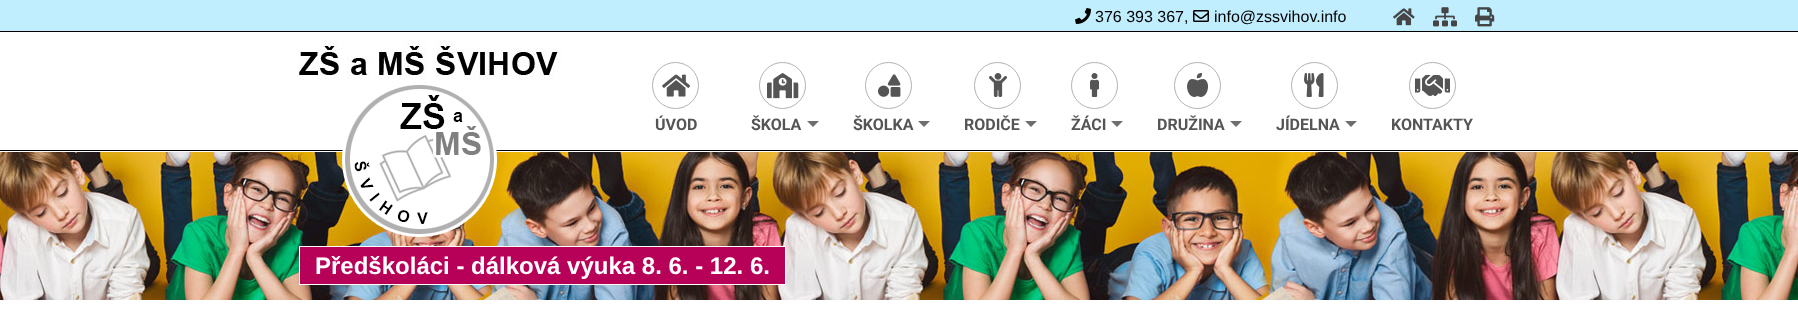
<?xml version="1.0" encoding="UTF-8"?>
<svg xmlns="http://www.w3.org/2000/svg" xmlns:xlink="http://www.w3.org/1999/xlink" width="1798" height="314">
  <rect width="100%" height="100%" fill="#ffffff" />
  <image x="0" y="0" width="1798" height="152" xlink:href="image1.png" />
  <image x="1075" y="8" width="16" height="16" xlink:href="image2.png" />
  <image x="1193" y="10" width="16" height="12" xlink:href="image3.png" />
  <image x="1393" y="8" width="22" height="18" xlink:href="image4.png" />
  <image x="1433" y="7" width="24" height="20" xlink:href="image5.png" />
  <image x="1475" y="7" width="20" height="20" xlink:href="image6.png" />
  <image x="299" y="40" width="263" height="40" xlink:href="image7.png" />
  <image x="0" y="152" width="1798" height="148" xlink:href="image17.png" />
  <image x="342" y="85" width="155" height="152" xlink:href="image8.png" />
  <circle cx="675.5" cy="85.5" r="23" fill="none" stroke="#b2b2b2" />
  <image x="662" y="74" width="29" height="23" xlink:href="image9.png" />
  <circle cx="782.5" cy="85.5" r="23" fill="none" stroke="#b2b2b2" />
  <image x="767" y="73" width="32" height="26" xlink:href="image10.png" />
  <path d="M 807 121 h 12 l -6 6 z" fill="#6e6e6e" />
  <circle cx="888.5" cy="85.5" r="23" fill="none" stroke="#b2b2b2" />
  <image x="878" y="74" width="23" height="23" xlink:href="image11.png" />
  <path d="M 918 121 h 12 l -6 6 z" fill="#6e6e6e" />
  <circle cx="997.5" cy="85.5" r="23" fill="none" stroke="#b2b2b2" />
  <image x="989" y="73" width="18" height="24" xlink:href="image12.png" />
  <path d="M 1025 121 h 12 l -6 6 z" fill="#6e6e6e" />
  <circle cx="1094.5" cy="85.5" r="23" fill="none" stroke="#b2b2b2" />
  <image x="1090" y="73" width="9" height="24" xlink:href="image13.png" />
  <path d="M 1111 121 h 12 l -6 6 z" fill="#6e6e6e" />
  <circle cx="1197.5" cy="85.5" r="23" fill="none" stroke="#b2b2b2" />
  <image x="1187" y="73" width="22" height="24" xlink:href="image14.png" />
  <path d="M 1230 121 h 12 l -6 6 z" fill="#6e6e6e" />
  <circle cx="1314.5" cy="85.5" r="23" fill="none" stroke="#b2b2b2" />
  <image x="1304" y="73" width="20" height="24" xlink:href="image15.png" />
  <path d="M 1345 121 h 12 l -6 6 z" fill="#6e6e6e" />
  <circle cx="1432.5" cy="85.5" r="23" fill="none" stroke="#b2b2b2" />
  <image x="1415" y="75" width="35" height="21" xlink:href="image16.png" />
  <rect x="299.5" y="246.5" width="486" height="38" fill="#b70058" stroke="#ffffff" />
  <text x="1095" y="22" style="font-family: Liberation Sans; font-size: 16px; fill: #000000">376 393 367,</text>
  <text x="1214" y="22" style="font-family: Liberation Sans; font-size: 16px; fill: #000000">info@zssvihov.info</text>
  <text x="655" y="130" style="font-family: Roboto; font-size: 16px; font-weight: bold; fill: #555555">ÚVOD</text>
  <text x="751" y="130" style="font-family: Roboto; font-size: 16px; font-weight: bold; fill: #555555">ŠKOLA</text>
  <text x="853" y="130" style="font-family: Roboto; font-size: 16px; font-weight: bold; fill: #555555">ŠKOLKA</text>
  <text x="964" y="130" style="font-family: Roboto; font-size: 16px; font-weight: bold; fill: #555555">RODIČE</text>
  <text x="1071" y="130" style="font-family: Roboto; font-size: 16px; font-weight: bold; fill: #555555">ŽÁCI</text>
  <text x="1157" y="130" style="font-family: Roboto; font-size: 16px; font-weight: bold; fill: #555555">DRUŽINA</text>
  <text x="1276" y="130" style="font-family: Roboto; font-size: 16px; font-weight: bold; fill: #555555">JÍDELNA</text>
  <text x="1391" y="130" style="font-family: Roboto; font-size: 16px; font-weight: bold; fill: #555555">KONTAKTY</text>
  <text x="315" y="274" style="font-family: Liberation Sans; font-size: 24px; font-weight: bold; fill: #ffffff">Předškoláci - dálková výuka 8. 6. - 12. 6.</text>
</svg>
